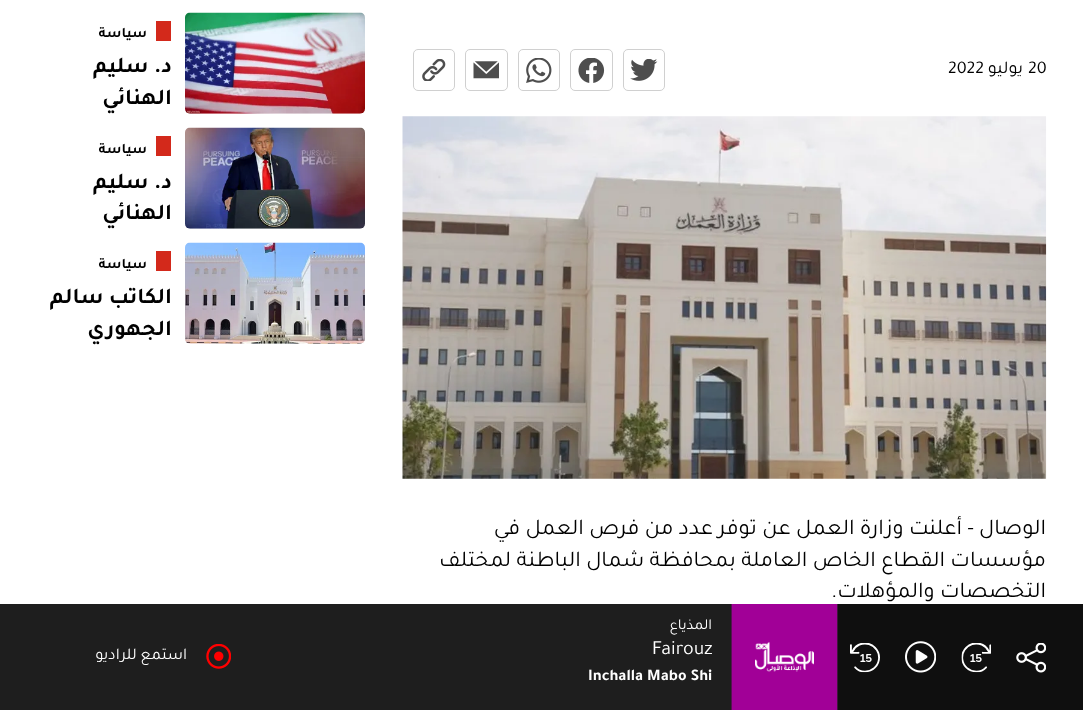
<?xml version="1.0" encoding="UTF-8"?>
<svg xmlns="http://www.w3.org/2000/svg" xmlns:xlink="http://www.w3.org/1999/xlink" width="1083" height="710">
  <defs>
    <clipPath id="clip1"><rect x="44" y="128" width="127" height="28" /></clipPath>
    <clipPath id="clip2"><rect x="44" y="243" width="127" height="28" /></clipPath>
  </defs>
  <rect width="100%" height="100%" fill="#ffffff" />
  <rect x="623.5" y="49.5" width="41" height="41" rx="4.5" fill="none" stroke="#d0d0d0" />
  <image x="630" y="59" width="28" height="22" xlink:href="image1.png" />
  <rect x="570.5" y="49.5" width="42" height="41" rx="4.5" fill="none" stroke="#d0d0d0" />
  <image x="578" y="58" width="27" height="25" xlink:href="image2.png" />
  <rect x="518.5" y="49.5" width="41" height="41" rx="4.5" fill="none" stroke="#d0d0d0" />
  <image x="526" y="58" width="26" height="25" xlink:href="image3.png" />
  <rect x="465.5" y="49.5" width="42" height="41" rx="4.5" fill="none" stroke="#d0d0d0" />
  <image x="473" y="61" width="26" height="18" xlink:href="image4.png" />
  <rect x="413.5" y="49.5" width="41" height="41" rx="4.5" fill="none" stroke="#d0d0d0" />
  <image x="422" y="59" width="24" height="22" xlink:href="image5.png" />
  <image x="402" y="116" width="645" height="363" xlink:href="image6.png" />
  <image x="185" y="12" width="180" height="102" xlink:href="image7.png" />
  <rect x="156" y="21" width="15" height="20" fill="#d3291b" />
  <image x="185" y="127" width="180" height="102" xlink:href="image8.png" />
  <rect x="156" y="136" width="15" height="20" fill="#d3291b" />
  <image x="185" y="242" width="180" height="102" xlink:href="image9.png" />
  <rect x="156" y="251" width="15" height="20" fill="#d3291b" />
  <rect y="604" width="838" height="106" fill="#1e1e1e" />
  <rect x="838" y="604" width="245" height="106" fill="#0f0f0f" />
  <image x="1016" y="643" width="30" height="30" xlink:href="image10.png" />
  <image x="961" y="643" width="30" height="30" xlink:href="image11.png" />
  <image x="905" y="641" width="31" height="32" xlink:href="image12.png" />
  <image x="850" y="643" width="30" height="30" xlink:href="image13.png" />
  <image x="731" y="604" width="107" height="106" xlink:href="image14.png" />
  <image x="206" y="644" width="25" height="25" xlink:href="image15.png" />
  <text x="1028" y="73" style="font-family: Tajawal; font-size: 18px; fill: #000000">20</text>
  <text x="1023" y="73" style="font-family: Tajawal; font-size: 18px; direction: rtl; fill: #000000">يوليو</text>
  <text x="948" y="73" style="font-family: Tajawal; font-size: 18px; fill: #000000">2022</text>
  <text x="1046" y="534" style="font-family: Tajawal; font-size: 22.5px; direction: rtl; fill: #000000">الوصال - أعلنت وزارة العمل عن توفر عدد من فرص العمل في</text>
  <text x="1046" y="566" style="font-family: Tajawal; font-size: 22.5px; direction: rtl; fill: #000000">مؤسسات القطاع الخاص العاملة بمحافظة شمال الباطنة لمختلف</text>
  <text x="1046" y="597" style="font-family: Tajawal; font-size: 22.5px; direction: rtl; fill: #000000">التخصصات والمؤهلات.</text>
  <text x="147" y="37" style="font-family: Tajawal; font-size: 14.5px; font-weight: bold; direction: rtl; fill: #000000">سياسة</text>
  <text x="172" y="72" style="font-family: Tajawal; font-size: 22.5px; font-weight: bold; direction: rtl; fill: #000000">د. سليم</text>
  <text x="172" y="104" style="font-family: Tajawal; font-size: 22.5px; font-weight: bold; direction: rtl; fill: #000000">الهنائي</text>
  <g clip-path="url(#clip1)">
    <text x="147" y="153" style="font-family: Tajawal; font-size: 14.5px; font-weight: bold; direction: rtl; fill: #000000">سياسة</text>
  </g>
  <text x="172" y="188" style="font-family: Tajawal; font-size: 22.5px; font-weight: bold; direction: rtl; fill: #000000">د. سليم</text>
  <text x="172" y="219" style="font-family: Tajawal; font-size: 22.5px; font-weight: bold; direction: rtl; fill: #000000">الهنائي</text>
  <g clip-path="url(#clip2)">
    <text x="147" y="268" style="font-family: Tajawal; font-size: 14.5px; font-weight: bold; direction: rtl; fill: #000000">سياسة</text>
  </g>
  <text x="172" y="303" style="font-family: Tajawal; font-size: 22.5px; font-weight: bold; direction: rtl; fill: #000000">الكاتب سالم</text>
  <text x="172" y="335" style="font-family: Tajawal; font-size: 22.5px; font-weight: bold; direction: rtl; fill: #000000">الجهوري</text>
  <text x="712" y="629" style="font-family: Tajawal; font-size: 15px; direction: rtl; fill: #ffffff">المذياع</text>
  <text x="652" y="654" style="font-family: Tajawal; font-size: 20px; fill: #ffffff">Fairouz</text>
  <text x="588" y="680" style="font-family: Tajawal; font-size: 16.25px; font-weight: bold; fill: #ffffff">Inchalla Mabo Shi</text>
  <text x="187" y="659" style="font-family: Tajawal; font-size: 16.25px; direction: rtl; fill: #ffffff">استمع للراديو</text>
</svg>
